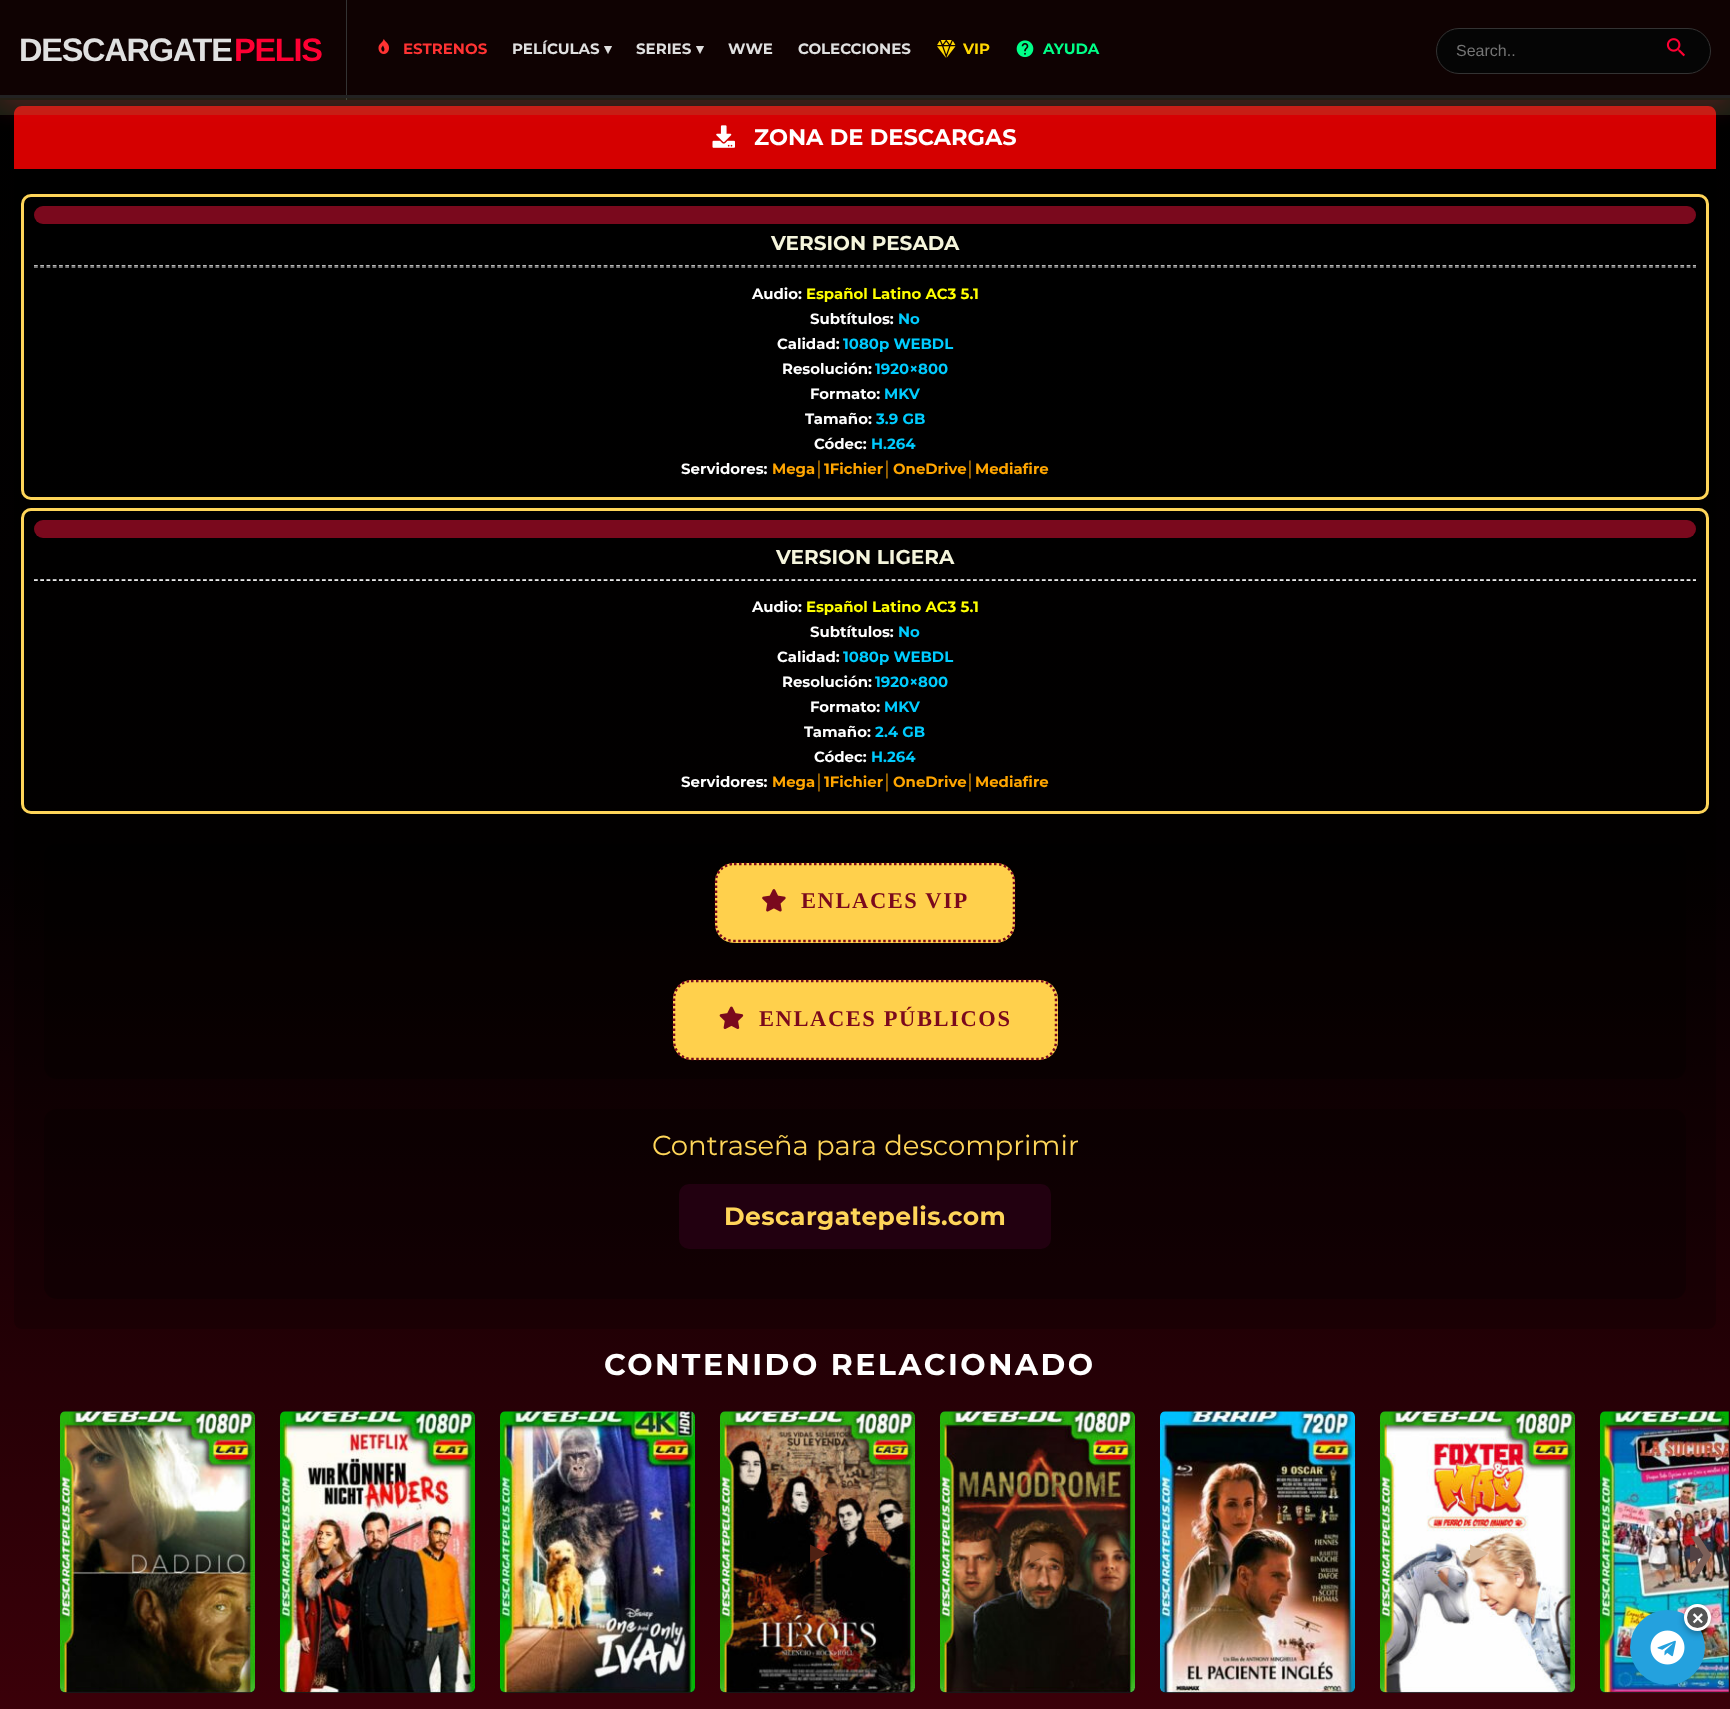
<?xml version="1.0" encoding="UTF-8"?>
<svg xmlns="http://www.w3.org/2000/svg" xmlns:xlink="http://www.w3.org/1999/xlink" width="1730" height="1709">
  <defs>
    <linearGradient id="g1" gradientUnits="userSpaceOnUse" x1="865" y1="0" x2="865" y2="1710"><stop offset="0" stop-color="#000000" /><stop offset="0.5" stop-color="#030001" /><stop offset="1" stop-color="#3b0009" /></linearGradient>
  </defs>
  <rect width="100%" height="100%" fill="#ffffff" />
  <rect y="100" width="1730" height="1609" fill="url(#g1)" />
  <rect x="14" y="106" width="1702" height="1223" rx="8" fill="#000000" fill-opacity="0.2" />
  <path d="M 22 106 h 1686 c 4.5 0 8 3.5 8 8 v 55 h -1702 v -55 c 0 -4.5 3.5 -8 8 -8 z" fill="#d50000" />
  <image x="712" y="125" width="23" height="23" xlink:href="image5.png" />
  <rect y="6" width="1730" height="100" fill="#ff0033" fill-opacity="0.25" filter="blur(12.5px)" />
  <rect width="1730" height="100" fill="#0f0202" />
  <rect x="346" width="1" height="100" fill="#333333" />
  <image x="378" y="39" width="11" height="15" xlink:href="image1.png" />
  <image x="937" y="40" width="19" height="18" xlink:href="image2.png" />
  <image x="1016" y="40" width="18" height="18" xlink:href="image3.png" />
  <rect x="1436.5" y="28.5" width="274" height="45" rx="22.5" fill="#050505" stroke="#333333" />
  <image x="1666" y="38" width="19" height="19" xlink:href="image4.png" />
  <rect y="98" width="1730" height="17" fill="#00d2ff" fill-opacity="0.05" />
  <rect y="98" width="1730" height="17" fill="#00ff88" fill-opacity="0.05" />
  <rect y="98" width="1730" height="17" fill="#ffd700" fill-opacity="0.05" />
  <rect y="98" width="1730" height="17" fill="#ff003c" fill-opacity="0.05" />
  <rect y="95" width="1730" height="3" fill="#222222" />
  <rect x="22.5" y="195.5" width="1685" height="303" rx="8.5" fill="none" stroke="#fed559" stroke-width="3" />
  <rect x="34" y="206" width="1662" height="18" rx="9" fill="#7a091d" />
  <path d="M 34 265.5 h 1662" fill="none" stroke="#bababa" stroke-width="1.2" stroke-dasharray="3.75 2.51" />
  <path d="M 34 267 h 1662" fill="none" stroke="#ececec" stroke-width="1.2" stroke-dasharray="3.75 2.51" />
  <rect x="22.5" y="509.5" width="1685" height="303" rx="8.5" fill="none" stroke="#fed559" stroke-width="3" />
  <rect x="34" y="520" width="1662" height="18" rx="9" fill="#7a091d" />
  <path d="M 34 579.5 h 1662" fill="none" stroke="#bababa" stroke-width="1.2" stroke-dasharray="3.75 2.51" />
  <path d="M 34 580.5 h 1662" fill="none" stroke="#ececec" stroke-width="1.2" stroke-dasharray="3.75 2.51" />
  <rect x="44" y="844" width="1642" height="235" rx="13" fill="#000000" fill-opacity="0.25" />
  <rect x="715" y="863" width="300" height="80" rx="19" fill="#ffd04c" />
  <path d="M 734 864 h 262 c 10 0 18 7.5 18 17 v 43 c 0 9.5 -8 17 -18 17 h -262 c -10 0 -18 -7.5 -18 -17 v -43 c 0 -9.5 8 -17 18 -17 z" fill="none" stroke="#7a091d" stroke-width="2.5" stroke-dasharray="2.5 2.5" />
  <image x="762" y="889" width="24" height="23" xlink:href="image6.png" />
  <rect x="673" y="980" width="385" height="80" rx="19" fill="#ffd04c" />
  <path d="M 691 981 h 348 c 9.5 0 17 8 17 18 v 42 c 0 10 -7.5 18 -17 18 h -348 c -9.5 0 -17 -8 -17 -18 v -42 c 0 -10 7.5 -18 17 -18 z" fill="none" stroke="#7a091d" stroke-width="2.5" stroke-dasharray="2.5 2.5" />
  <image x="719" y="1006" width="25" height="23" xlink:href="image7.png" />
  <rect x="44" y="1109" width="1642" height="190" rx="13" fill="#000000" fill-opacity="0.25" />
  <rect x="679" y="1184" width="372" height="65" rx="10" fill="#220010" />
  <rect x="60" y="1411" width="195" height="282" rx="5" fill="#1a1a1a" />
  <image x="60" y="1411" width="195" height="282" xlink:href="image8.png" />
  <rect x="280" y="1411" width="195" height="282" rx="5" fill="#1a1a1a" />
  <image x="280" y="1411" width="195" height="282" xlink:href="image9.png" />
  <rect x="500" y="1411" width="195" height="282" rx="5" fill="#1a1a1a" />
  <image x="500" y="1411" width="195" height="282" xlink:href="image10.png" />
  <rect x="720" y="1411" width="195" height="282" rx="5" fill="#1a1a1a" />
  <image x="720" y="1411" width="195" height="282" xlink:href="image11.png" />
  <rect x="940" y="1411" width="195" height="282" rx="5" fill="#1a1a1a" />
  <image x="940" y="1411" width="195" height="282" xlink:href="image12.png" />
  <rect x="1160" y="1411" width="195" height="282" rx="5" fill="#1a1a1a" />
  <image x="1160" y="1411" width="195" height="282" xlink:href="image13.png" />
  <rect x="1380" y="1411" width="195" height="282" rx="5" fill="#1a1a1a" />
  <image x="1380" y="1411" width="195" height="282" xlink:href="image14.png" />
  <path d="M 1605 1411 h 124 v 282 h -124 c -3 0 -5 -2 -5 -5 v -272 c 0 -3 2 -5 5 -5 z" fill="#1a1a1a" />
  <image x="1600" y="1411" width="129" height="282" xlink:href="image15.png" />
  <circle cx="1667.5" cy="1647.5" r="37.5" fill="#24a1de" />
  <image x="1650" y="1630" width="35" height="35" xlink:href="image16.png" />
  <rect x="1684" y="1606" width="27" height="28" rx="13.5" fill="#000000" fill-opacity="0.3" filter="blur(3px)" />
  <circle cx="1697.5" cy="1617.5" r="12" fill="#555555" stroke="#ffffff" stroke-width="3" />
  <text x="19" y="61" style="font-family: Liberation Sans; font-size: 32.5px; font-weight: bold; letter-spacing: -1.25px; fill: #e0e0e0">DESCARGATE</text>
  <text x="234" y="61" style="font-family: Liberation Sans; font-size: 32.5px; font-weight: bold; letter-spacing: -1.25px; fill: #ff0033">PELIS</text>
  <text x="403" y="54" style="font-family: Montserrat; font-size: 15px; font-weight: bold; fill: #ff3333">ESTRENOS</text>
  <text x="512" y="54" style="font-family: Montserrat; font-size: 15px; font-weight: bold; fill: #e0e0e0">PELÍCULAS</text>
  <text x="604" y="54" style="font-family: DejaVu Sans; font-size: 15px; font-weight: bold; fill: #e0e0e0">▾</text>
  <text x="636" y="54" style="font-family: Montserrat; font-size: 15px; font-weight: bold; fill: #e0e0e0">SERIES</text>
  <text x="696" y="54" style="font-family: DejaVu Sans; font-size: 15px; font-weight: bold; fill: #e0e0e0">▾</text>
  <text x="728" y="54" style="font-family: Montserrat; font-size: 15px; font-weight: bold; fill: #e0e0e0">WWE</text>
  <text x="798" y="54" style="font-family: Montserrat; font-size: 15px; font-weight: bold; fill: #e0e0e0">COLECCIONES</text>
  <text x="963" y="54" style="font-family: Montserrat; font-size: 15px; font-weight: bold; fill: #ffd700">VIP</text>
  <text x="1043" y="54" style="font-family: Montserrat; font-size: 15px; font-weight: bold; fill: #00ff88">AYUDA</text>
  <text x="1456" y="56" style="font-family: Liberation Sans; font-size: 16px; fill: #757575">Search..</text>
  <text x="754" y="145" style="font-family: Montserrat; font-size: 22.5px; font-weight: bold; fill: #ffffff">ZONA DE DESCARGAS</text>
  <text x="771" y="250" style="font-family: Montserrat; font-size: 20px; font-weight: bold; fill: #f5f5dc">VERSION PESADA</text>
  <text x="752" y="299" style="font-family: Montserrat; font-size: 14.9px; font-weight: bold; fill: #ffffff">Audio:</text>
  <text x="806" y="299" style="font-family: Montserrat; font-size: 14.9px; font-weight: bold; fill: #ffff00">Español Latino AC3 5.1</text>
  <text x="810" y="324" style="font-family: Montserrat; font-size: 14.9px; font-weight: bold; fill: #ffffff">Subtítulos:</text>
  <text x="898" y="324" style="font-family: Montserrat; font-size: 14.9px; font-weight: bold; fill: #00ccff">No</text>
  <text x="777" y="349" style="font-family: Montserrat; font-size: 14.9px; font-weight: bold; fill: #ffffff">Calidad:</text>
  <text x="843" y="349" style="font-family: Montserrat; font-size: 14.9px; font-weight: bold; fill: #00ccff">1080p WEBDL</text>
  <text x="782" y="374" style="font-family: Montserrat; font-size: 14.9px; font-weight: bold; fill: #ffffff">Resolución:</text>
  <text x="875" y="374" style="font-family: Montserrat; font-size: 14.9px; font-weight: bold; fill: #00ccff">1920×800</text>
  <text x="810" y="399" style="font-family: Montserrat; font-size: 14.9px; font-weight: bold; fill: #ffffff">Formato:</text>
  <text x="884" y="399" style="font-family: Montserrat; font-size: 14.9px; font-weight: bold; fill: #00ccff">MKV</text>
  <text x="805" y="424" style="font-family: Montserrat; font-size: 14.9px; font-weight: bold; fill: #ffffff">Tamaño:</text>
  <text x="876" y="424" style="font-family: Montserrat; font-size: 14.9px; font-weight: bold; fill: #00ccff">3.9 GB</text>
  <text x="814" y="449" style="font-family: Montserrat; font-size: 14.9px; font-weight: bold; fill: #ffffff">Códec:</text>
  <text x="871" y="449" style="font-family: Montserrat; font-size: 14.9px; font-weight: bold; fill: #00ccff">H.264</text>
  <text x="681" y="474" style="font-family: Montserrat; font-size: 14.9px; font-weight: bold; fill: #ffffff">Servidores:</text>
  <text x="772" y="474" style="font-family: Montserrat; font-size: 14.9px; font-weight: bold; fill: #ffa500">Mega</text>
  <text x="815" y="474" style="font-family: Liberation Sans; font-size: 14.9px; font-weight: bold; fill: #ffa500">│</text>
  <text x="824" y="474" style="font-family: Montserrat; font-size: 14.9px; font-weight: bold; fill: #ffa500">1Fichier</text>
  <text x="883" y="474" style="font-family: Liberation Sans; font-size: 14.9px; font-weight: bold; fill: #ffa500">│</text>
  <text x="893" y="474" style="font-family: Montserrat; font-size: 14.9px; font-weight: bold; fill: #ffa500">OneDrive</text>
  <text x="966" y="474" style="font-family: Liberation Sans; font-size: 14.9px; font-weight: bold; fill: #ffa500">│</text>
  <text x="975" y="474" style="font-family: Montserrat; font-size: 14.9px; font-weight: bold; fill: #ffa500">Mediafire</text>
  <text x="776" y="564" style="font-family: Montserrat; font-size: 20px; font-weight: bold; fill: #f5f5dc">VERSION LIGERA</text>
  <text x="752" y="612" style="font-family: Montserrat; font-size: 14.9px; font-weight: bold; fill: #ffffff">Audio:</text>
  <text x="806" y="612" style="font-family: Montserrat; font-size: 14.9px; font-weight: bold; fill: #ffff00">Español Latino AC3 5.1</text>
  <text x="810" y="637" style="font-family: Montserrat; font-size: 14.9px; font-weight: bold; fill: #ffffff">Subtítulos:</text>
  <text x="898" y="637" style="font-family: Montserrat; font-size: 14.9px; font-weight: bold; fill: #00ccff">No</text>
  <text x="777" y="662" style="font-family: Montserrat; font-size: 14.9px; font-weight: bold; fill: #ffffff">Calidad:</text>
  <text x="843" y="662" style="font-family: Montserrat; font-size: 14.9px; font-weight: bold; fill: #00ccff">1080p WEBDL</text>
  <text x="782" y="687" style="font-family: Montserrat; font-size: 14.9px; font-weight: bold; fill: #ffffff">Resolución:</text>
  <text x="875" y="687" style="font-family: Montserrat; font-size: 14.9px; font-weight: bold; fill: #00ccff">1920×800</text>
  <text x="810" y="712" style="font-family: Montserrat; font-size: 14.9px; font-weight: bold; fill: #ffffff">Formato:</text>
  <text x="884" y="712" style="font-family: Montserrat; font-size: 14.9px; font-weight: bold; fill: #00ccff">MKV</text>
  <text x="804" y="737" style="font-family: Montserrat; font-size: 14.9px; font-weight: bold; fill: #ffffff">Tamaño:</text>
  <text x="875" y="737" style="font-family: Montserrat; font-size: 14.9px; font-weight: bold; fill: #00ccff">2.4 GB</text>
  <text x="814" y="762" style="font-family: Montserrat; font-size: 14.9px; font-weight: bold; fill: #ffffff">Códec:</text>
  <text x="871" y="762" style="font-family: Montserrat; font-size: 14.9px; font-weight: bold; fill: #00ccff">H.264</text>
  <text x="681" y="787" style="font-family: Montserrat; font-size: 14.9px; font-weight: bold; fill: #ffffff">Servidores:</text>
  <text x="772" y="787" style="font-family: Montserrat; font-size: 14.9px; font-weight: bold; fill: #ffa500">Mega</text>
  <text x="815" y="787" style="font-family: Liberation Sans; font-size: 14.9px; font-weight: bold; fill: #ffa500">│</text>
  <text x="824" y="787" style="font-family: Montserrat; font-size: 14.9px; font-weight: bold; fill: #ffa500">1Fichier</text>
  <text x="883" y="787" style="font-family: Liberation Sans; font-size: 14.9px; font-weight: bold; fill: #ffa500">│</text>
  <text x="893" y="787" style="font-family: Montserrat; font-size: 14.9px; font-weight: bold; fill: #ffa500">OneDrive</text>
  <text x="966" y="787" style="font-family: Liberation Sans; font-size: 14.9px; font-weight: bold; fill: #ffa500">│</text>
  <text x="975" y="787" style="font-family: Montserrat; font-size: 14.9px; font-weight: bold; fill: #ffa500">Mediafire</text>
  <text x="801" y="908" style="font-family: Liberation Serif; font-size: 22.5px; font-weight: bold; letter-spacing: 1.6px; fill: #7a091d">ENLACES VIP</text>
  <text x="759" y="1026" style="font-family: Liberation Serif; font-size: 22.5px; font-weight: bold; letter-spacing: 1.6px; fill: #7a091d">ENLACES PÚBLICOS</text>
  <text x="652" y="1155" style="font-family: Montserrat; font-size: 27.5px; fill: #fed559">Contraseña para descomprimir</text>
  <text x="724" y="1225" style="font-family: Montserrat; font-size: 25px; font-weight: bold; letter-spacing: 0.4px; fill: #fed559">Descargatepelis.com</text>
  <text x="604" y="1375" style="font-family: Montserrat; font-size: 30px; font-weight: bold; letter-spacing: 2.5px; fill: #ffffff">CONTENIDO RELACIONADO</text>
  <text x="810" y="1560" style="font-family: DejaVu Sans; font-size: 24px; fill: #4f2113">▶</text>
  <text x="1030" y="1560" style="font-family: DejaVu Sans; font-size: 24px; fill: #a86943">▶</text>
  <text x="1470" y="1560" style="font-family: DejaVu Sans; font-size: 24px; fill: #d7b89c">▶</text>
  <text x="1690" y="1560" style="font-family: DejaVu Sans; font-size: 24px; fill: #534244">▶</text>
  <text x="1685" y="1565" style="font-family: DejaVu Sans; font-size: 38px; fill: #7c6059">❯</text>
  <text x="1692" y="1625" style="font-family: Liberation Sans; font-size: 20px; font-weight: bold; fill: #ffffff">×</text>
</svg>
